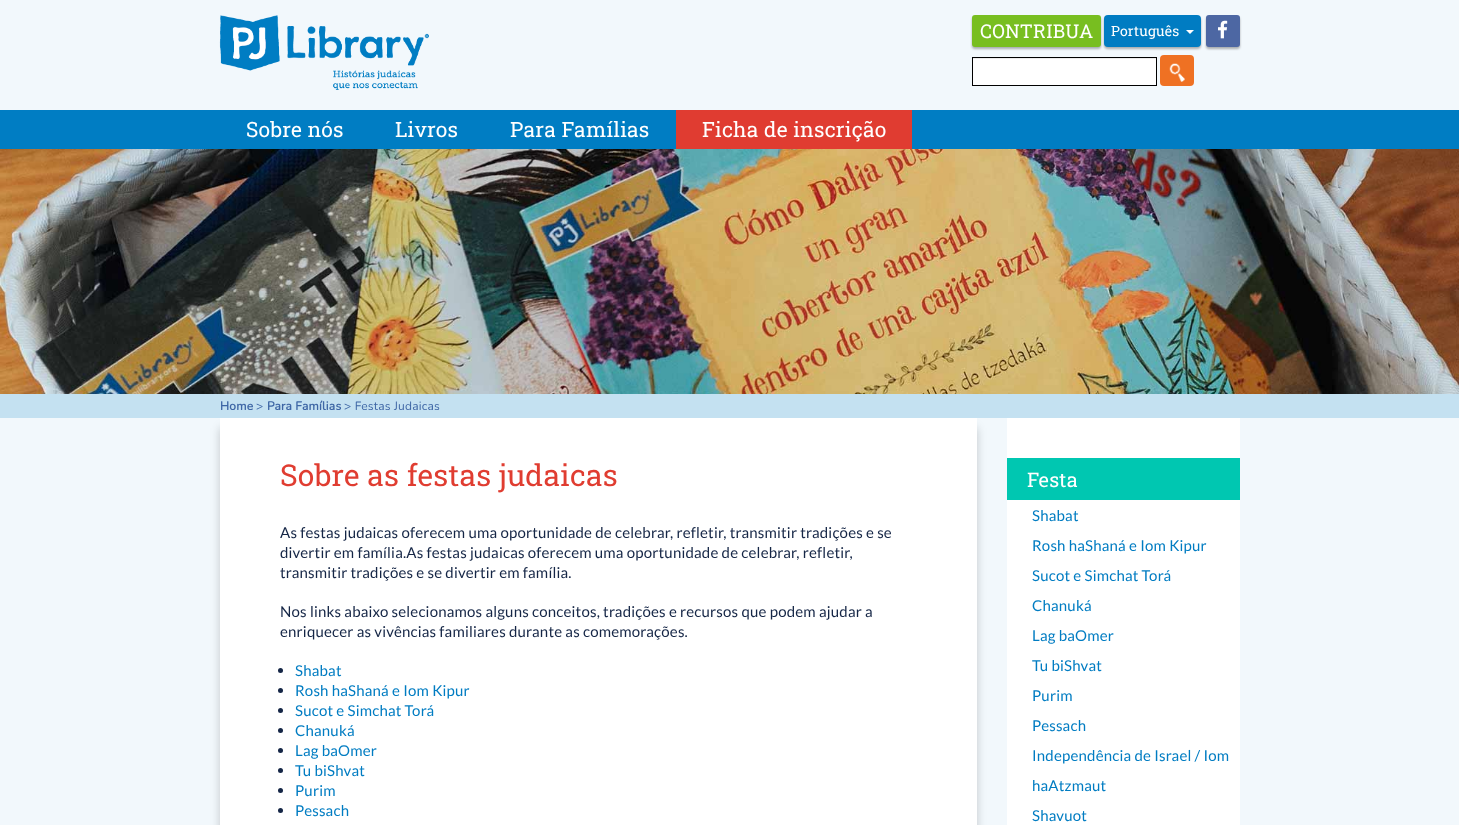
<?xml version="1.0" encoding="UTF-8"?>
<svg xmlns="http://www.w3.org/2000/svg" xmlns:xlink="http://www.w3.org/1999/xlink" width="1459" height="825">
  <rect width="100%" height="100%" fill="#f2f8fc" />
  <image x="219" y="15" width="210" height="75" xlink:href="image1.png" />
  <rect x="972" y="17" width="129" height="32" rx="3" fill="#000000" fill-opacity="0.3" filter="blur(1px)" />
  <rect x="972" y="15" width="129" height="32" rx="3" fill="#78be20" />
  <rect x="1104" y="17" width="97" height="32" rx="4" fill="#000000" fill-opacity="0.3" filter="blur(1px)" />
  <rect x="1104" y="15" width="97" height="32" rx="4" fill="#007cc2" />
  <path d="M 1186 30 h 8 l -4 4 z" fill="#ffffff" />
  <rect x="1206" y="17" width="34" height="32" rx="3" fill="#000000" fill-opacity="0.3" filter="blur(1px)" />
  <rect x="1206" y="15" width="34" height="32" rx="3" fill="#4d67a3" />
  <image x="1218" y="20" width="10" height="19" xlink:href="image2.png" />
  <rect x="973" y="59" width="183" height="26" fill="#ffffff" />
  <rect x="973" y="58" width="183" height="1" fill="#ececec" />
  <rect x="972.5" y="57.5" width="184" height="28" fill="none" stroke="#000000" />
  <rect x="1160" y="55" width="34" height="31" rx="4" fill="#ef7123" />
  <image x="1169" y="63" width="16" height="19" xlink:href="image3.png" />
  <rect y="110" width="1459" height="39" fill="#007dc3" />
  <rect x="676" y="110" width="236" height="39" fill="#e03c31" />
  <image x="0" y="149" width="1459" height="245" xlink:href="image4.png" />
  <rect y="394" width="1459" height="24" fill="#c4e1f1" />
  <rect x="240" y="428" width="737" height="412" fill="#000000" fill-opacity="0.2" filter="blur(5px)" />
  <rect x="220" y="428" width="737" height="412" fill="#000000" fill-opacity="0.2" filter="blur(5px)" />
  <rect x="220" y="418" width="757" height="407" fill="#ffffff" />
  <circle cx="280.5" cy="670.5" r="2.5" fill="#152646" />
  <circle cx="280.5" cy="690.5" r="2.5" fill="#152646" />
  <circle cx="280.5" cy="710.5" r="2.5" fill="#152646" />
  <circle cx="280.5" cy="730.5" r="2.5" fill="#152646" />
  <circle cx="280.5" cy="750.5" r="2.5" fill="#152646" />
  <circle cx="280.5" cy="770.5" r="2.5" fill="#152646" />
  <circle cx="280.5" cy="790.5" r="2.5" fill="#152646" />
  <circle cx="280.5" cy="810.5" r="2.5" fill="#152646" />
  <rect x="1007" y="418" width="233" height="407" fill="#ffffff" />
  <rect x="1007" y="458" width="233" height="42" fill="#00c7b1" />
  <text x="980" y="38" style="font-family: Roboto Slab; font-size: 19px; letter-spacing: 0.2px; fill: #ffffff">CONTRIBUA</text>
  <text x="1111" y="36" style="font-family: Roboto Slab; font-size: 14px; letter-spacing: 0.2px; fill: #ffffff">Português</text>
  <text x="246" y="137" style="font-family: Roboto Slab; font-size: 21px; letter-spacing: 0.2px; fill: #ffffff">Sobre nós</text>
  <text x="395" y="137" style="font-family: Roboto Slab; font-size: 21px; letter-spacing: 0.2px; fill: #ffffff">Livros</text>
  <text x="510" y="137" style="font-family: Roboto Slab; font-size: 21px; letter-spacing: 0.2px; fill: #ffffff">Para Famílias</text>
  <text x="702" y="137" style="font-family: Roboto Slab; font-size: 21px; letter-spacing: 0.2px; fill: #ffffff">Ficha de inscrição</text>
  <text x="220" y="410" style="font-family: Nunito; font-size: 12px; font-weight: bold; letter-spacing: 0.2px; fill: #3e66a5">Home</text>
  <text x="256" y="410" style="font-family: Nunito; font-size: 12px; font-weight: 200; letter-spacing: 0.2px; fill: #3e66a5">&gt;</text>
  <text x="267" y="410" style="font-family: Nunito; font-size: 12px; font-weight: bold; letter-spacing: 0.2px; fill: #3e66a5">Para Famílias</text>
  <text x="344" y="410" style="font-family: Nunito; font-size: 12px; font-weight: 200; letter-spacing: 0.2px; fill: #3e66a5">&gt; Festas Judaicas</text>
  <text x="280" y="486" style="font-family: Roboto Slab; font-size: 30px; letter-spacing: 0.2px; fill: #e03d31">Sobre as festas judaicas</text>
  <text x="280" y="538" style="font-family: Lato; font-size: 15px; letter-spacing: 0.2px; fill: #152646">As festas judaicas oferecem uma oportunidade de celebrar, refletir, transmitir tradições e se</text>
  <text x="280" y="558" style="font-family: Lato; font-size: 15px; letter-spacing: 0.2px; fill: #152646">divertir em família.As festas judaicas oferecem uma oportunidade de celebrar, refletir,</text>
  <text x="280" y="578" style="font-family: Lato; font-size: 15px; letter-spacing: 0.2px; fill: #152646">transmitir tradições e se divertir em família.</text>
  <text x="280" y="617" style="font-family: Lato; font-size: 15px; letter-spacing: 0.2px; fill: #152646">Nos links abaixo selecionamos alguns conceitos, tradições e recursos que podem ajudar a</text>
  <text x="280" y="637" style="font-family: Lato; font-size: 15px; letter-spacing: 0.2px; fill: #152646">enriquecer as vivências familiares durante as comemorações.</text>
  <text x="295" y="676" style="font-family: Lato; font-size: 15px; letter-spacing: 0.2px; fill: #007cc2">Shabat</text>
  <text x="295" y="696" style="font-family: Lato; font-size: 15px; letter-spacing: 0.2px; fill: #007cc2">Rosh haShaná e Iom Kipur</text>
  <text x="295" y="716" style="font-family: Lato; font-size: 15px; letter-spacing: 0.2px; fill: #007cc2">Sucot e Simchat Torá</text>
  <text x="295" y="736" style="font-family: Lato; font-size: 15px; letter-spacing: 0.2px; fill: #007cc2">Chanuká</text>
  <text x="295" y="756" style="font-family: Lato; font-size: 15px; letter-spacing: 0.2px; fill: #007cc2">Lag baOmer</text>
  <text x="295" y="776" style="font-family: Lato; font-size: 15px; letter-spacing: 0.2px; fill: #007cc2">Tu biShvat</text>
  <text x="295" y="796" style="font-family: Lato; font-size: 15px; letter-spacing: 0.2px; fill: #007cc2">Purim</text>
  <text x="295" y="816" style="font-family: Lato; font-size: 15px; letter-spacing: 0.2px; fill: #007cc2">Pessach</text>
  <text x="1027" y="487" style="font-family: Roboto Slab; font-size: 20px; letter-spacing: 0.2px; fill: #ffffff">Festa</text>
  <text x="1032" y="521" style="font-family: Lato; font-size: 15px; letter-spacing: 0.2px; fill: #007cc2">Shabat</text>
  <text x="1032" y="551" style="font-family: Lato; font-size: 15px; letter-spacing: 0.2px; fill: #007cc2">Rosh haShaná e Iom Kipur</text>
  <text x="1032" y="581" style="font-family: Lato; font-size: 15px; letter-spacing: 0.2px; fill: #007cc2">Sucot e Simchat Torá</text>
  <text x="1032" y="611" style="font-family: Lato; font-size: 15px; letter-spacing: 0.2px; fill: #007cc2">Chanuká</text>
  <text x="1032" y="641" style="font-family: Lato; font-size: 15px; letter-spacing: 0.2px; fill: #007cc2">Lag baOmer</text>
  <text x="1032" y="671" style="font-family: Lato; font-size: 15px; letter-spacing: 0.2px; fill: #007cc2">Tu biShvat</text>
  <text x="1032" y="701" style="font-family: Lato; font-size: 15px; letter-spacing: 0.2px; fill: #007cc2">Purim</text>
  <text x="1032" y="731" style="font-family: Lato; font-size: 15px; letter-spacing: 0.2px; fill: #007cc2">Pessach</text>
  <text x="1032" y="761" style="font-family: Lato; font-size: 15px; letter-spacing: 0.2px; fill: #007cc2">Independência de Israel / Iom</text>
  <text x="1032" y="791" style="font-family: Lato; font-size: 15px; letter-spacing: 0.2px; fill: #007cc2">haAtzmaut</text>
  <text x="1032" y="821" style="font-family: Lato; font-size: 15px; letter-spacing: 0.2px; fill: #007cc2">Shavuot</text>
</svg>
